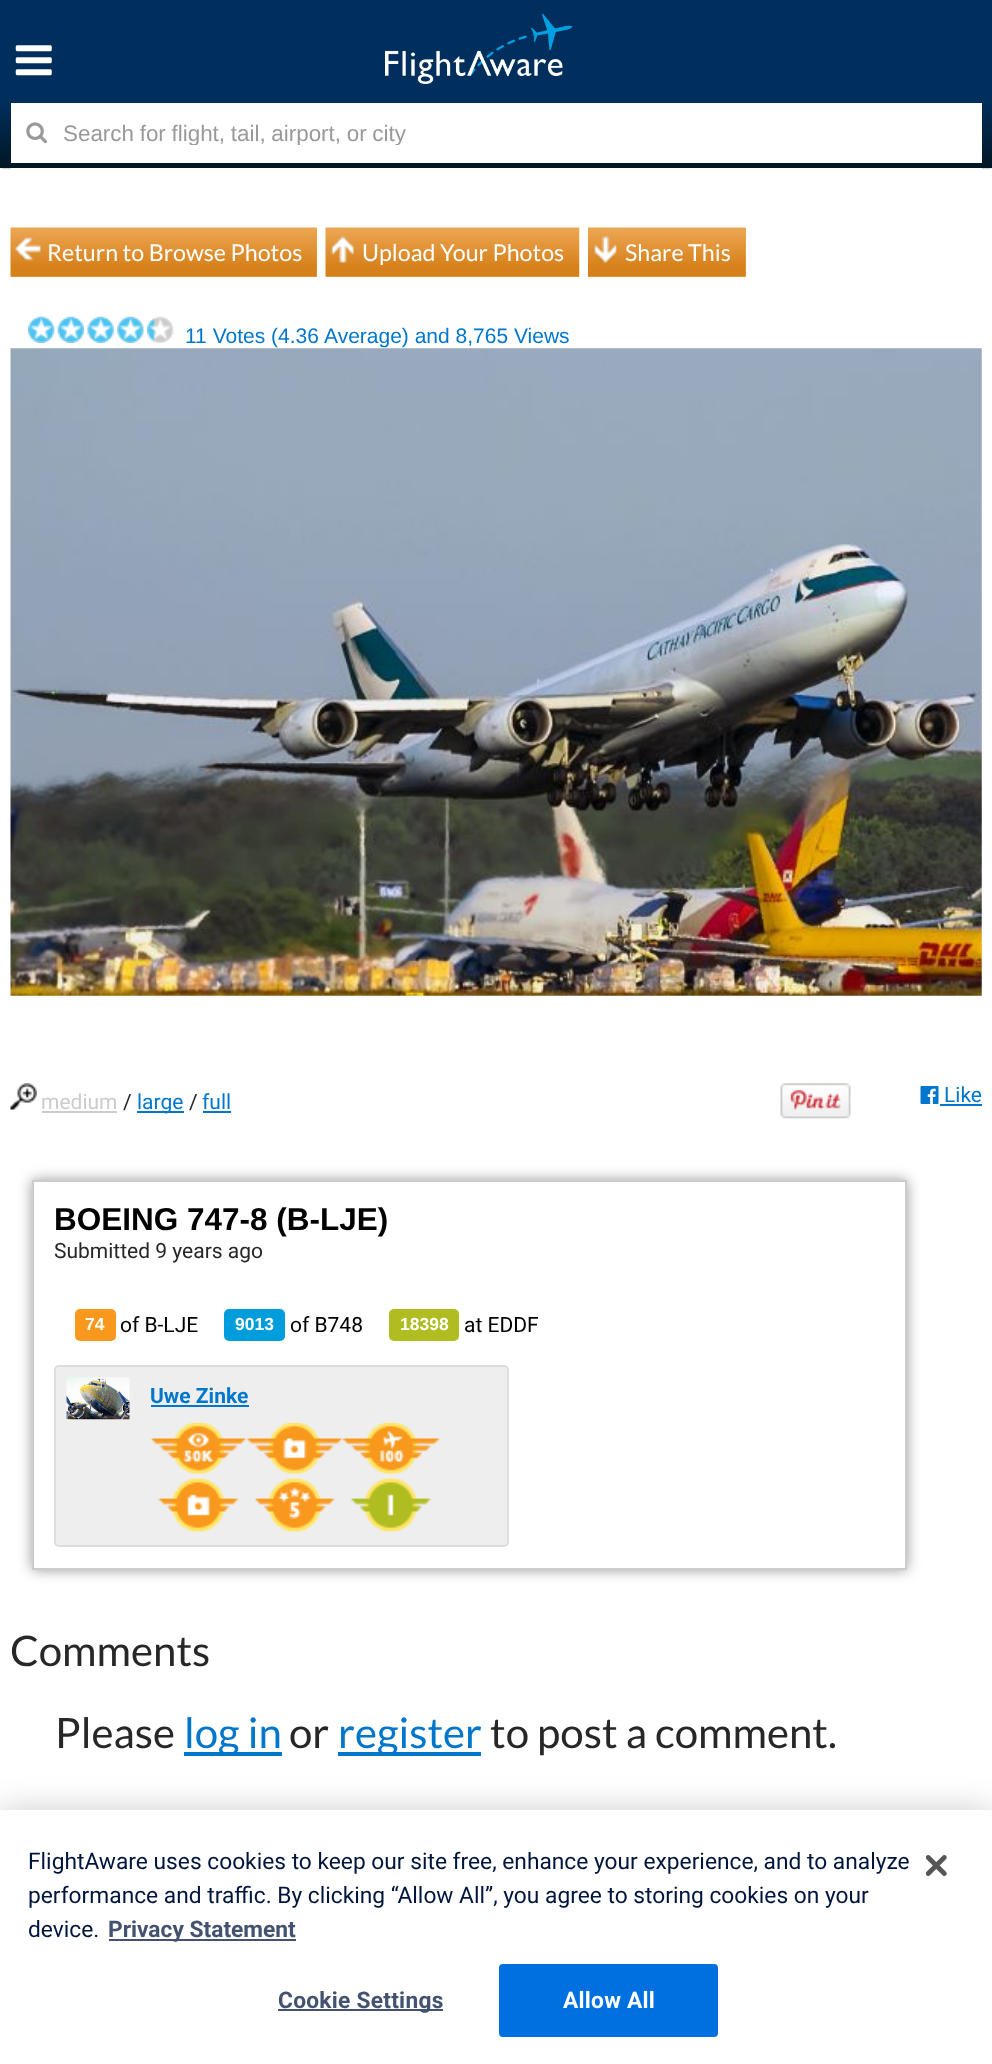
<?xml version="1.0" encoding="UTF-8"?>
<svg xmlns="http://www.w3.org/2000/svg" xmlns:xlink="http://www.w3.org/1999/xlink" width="992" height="2064">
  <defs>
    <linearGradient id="g1" gradientUnits="userSpaceOnUse" x1="496" y1="0" x2="496" y2="168"><stop offset="0" stop-color="#002f5d" /><stop offset="0.6" stop-color="#002f5d" /><stop offset="1" stop-color="#021624" /></linearGradient>
    <clipPath id="clip1"><path d="M 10 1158 h 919 v 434 h -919 z m 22 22 h 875 v 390 h -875 z" clip-rule="evenodd" /></clipPath>
    <clipPath id="clip2"><rect x="26" y="119" width="956" height="26" /></clipPath>
  </defs>
  <rect width="100%" height="100%" fill="#ffffff" />
  <rect x="2" y="4" width="989" height="164" fill="#888888" filter="blur(1px)" />
  <rect width="992" height="168" fill="url(#g1)" />
  <image x="15" y="45" width="37" height="31" xlink:href="image1.png" />
  <image x="385" y="14" width="188" height="70" xlink:href="image2.png" />
  <rect x="11" y="103" width="971" height="60" fill="#ffffff" />
  <image x="26" y="122" width="21" height="22" xlink:href="image3.png" />
  <rect x="11" y="168" width="971" height="2" fill="#ffffff" />
  <rect x="11" y="228" width="306" height="49" fill="#eda653" />
  <image x="10" y="227" width="307" height="50" xlink:href="image4.png" />
  <image x="15" y="237" width="26" height="25" xlink:href="image5.png" />
  <rect x="326" y="276" width="253" height="1" fill="#eda653" />
  <image x="325" y="227" width="255" height="50" xlink:href="image6.png" />
  <image x="330" y="236" width="24" height="27" xlink:href="image7.png" />
  <rect x="588" y="228" width="158" height="49" fill="#eda653" />
  <image x="588" y="227" width="158" height="50" xlink:href="image8.png" />
  <image x="593" y="236" width="24" height="27" xlink:href="image9.png" />
  <image x="28" y="316" width="27" height="27" xlink:href="image10.png" />
  <image x="57" y="316" width="27" height="27" xlink:href="image11.png" />
  <image x="87" y="316" width="27" height="27" xlink:href="image12.png" />
  <image x="117" y="316" width="27" height="27" xlink:href="image13.png" />
  <image x="147" y="316" width="27" height="27" xlink:href="image14.png" />
  <image x="10" y="348" width="972" height="648" xlink:href="image15.png" />
  <image x="10" y="1083" width="27" height="27" xlink:href="image16.png" />
  <rect x="42" y="1111" width="75" height="2" fill="#cccccc" />
  <rect x="137" y="1111" width="47" height="2" fill="#0077cc" />
  <rect x="203" y="1111" width="28" height="2" fill="#0077cc" />
  <image x="780" y="1083" width="71" height="36" xlink:href="image17.png" />
  <image x="920" y="1086" width="19" height="18" xlink:href="image18.png" />
  <rect x="940" y="1104" width="42" height="2" fill="#0077cc" />
  <g clip-path="url(#clip1)">
    <rect x="32" y="1180" width="875" height="390" fill="#999999" filter="blur(7px)" />
  </g>
  <rect x="33" y="1181" width="873" height="388" fill="none" stroke="#cccccc" stroke-width="2" />
  <rect x="75" y="1309" width="41" height="32" rx="5" fill="#f8981d" />
  <rect x="224" y="1309" width="61" height="32" rx="5" fill="#009ddc" />
  <rect x="389" y="1309" width="70" height="32" rx="5" fill="#afbd21" />
  <rect x="55" y="1366" width="453" height="180" rx="4" fill="#eeeeee" stroke="#dddddd" stroke-width="2" />
  <image x="66" y="1377" width="64" height="43" xlink:href="image19.png" />
  <rect x="151" y="1405" width="98" height="2" fill="#0077cc" />
  <image x="150" y="1422" width="97" height="52" xlink:href="image20.png" />
  <image x="246" y="1422" width="97" height="52" xlink:href="image21.png" />
  <image x="343" y="1422" width="97" height="52" xlink:href="image22.png" />
  <image x="157" y="1478" width="82" height="54" xlink:href="image23.png" />
  <image x="255" y="1478" width="80" height="54" xlink:href="image24.png" />
  <image x="350" y="1478" width="81" height="54" xlink:href="image25.png" />
  <rect x="184" y="1752" width="98" height="4" fill="#0077cc" />
  <rect x="338" y="1752" width="143" height="4" fill="#0077cc" />
  <rect y="1810" width="992" height="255" fill="#000000" fill-opacity="0.2" filter="blur(16px)" />
  <rect y="1810" width="992" height="254" fill="#ffffff" />
  <rect x="109" y="1939" width="187" height="2" fill="#42526f" />
  <rect x="278" y="2009" width="165" height="2" fill="#42526f" />
  <rect x="500" y="1965" width="217" height="71" rx="3" fill="#0070e0" stroke="#0070e0" stroke-width="2" />
  <image x="926" y="1855" width="21" height="21" xlink:href="image26.png" />
  <g clip-path="url(#clip2)">
    <text x="63" y="141" word-spacing="-0.5" style="font-family: Liberation Sans; font-size: 22.4px; fill: #999999">Search for flight, tail, airport, or city</text>
  </g>
  <text x="47" y="261" style="font-family: Lato; font-size: 23.25px; fill: #ffffff">Return to Browse Photos</text>
  <text x="362" y="261" style="font-family: Lato; font-size: 23.25px; fill: #ffffff">Upload Your Photos</text>
  <text x="625" y="261" style="font-family: Lato; font-size: 23.25px; fill: #ffffff">Share This</text>
  <text x="185" y="343" style="font-family: Liberation Sans; font-size: 21px; fill: #0077cc">11 Votes (4.36</text>
  <text x="324" y="343" style="font-family: Liberation Sans; font-size: 21px; fill: #0077cc">Average) and 8,765 Views</text>
  <text x="41" y="1109" style="font-family: Roboto; font-size: 21px; fill: #cccccc">medium</text>
  <text x="123" y="1109" style="font-family: Roboto; font-size: 21px; fill: #272727">/</text>
  <text x="137" y="1109" style="font-family: Roboto; font-size: 21px; fill: #0077cc">large</text>
  <text x="189" y="1109" style="font-family: Roboto; font-size: 21px; fill: #272727">/</text>
  <text x="202" y="1109" style="font-family: Roboto; font-size: 21px; fill: #0077cc">full</text>
  <text x="944" y="1102" style="font-family: Roboto; font-size: 21px; fill: #0077cc">Like</text>
  <text x="54" y="1230" style="font-family: Liberation Sans; font-size: 31.5px; font-weight: bold; fill: #000000">BOEING 747-8 (B-LJE)</text>
  <text x="54" y="1258" style="font-family: Roboto; font-size: 21px; fill: #272727">Submitted 9 years ago</text>
  <text x="85" y="1330" style="font-family: Liberation Sans; font-size: 17.5px; font-weight: bold; fill: #ffffff">74</text>
  <text x="120" y="1332" style="font-family: Roboto; font-size: 21px; fill: #000000">of B-LJE</text>
  <text x="235" y="1330" style="font-family: Liberation Sans; font-size: 17.5px; font-weight: bold; fill: #ffffff">9013</text>
  <text x="290" y="1332" style="font-family: Roboto; font-size: 21px; fill: #000000">of B748</text>
  <text x="400" y="1330" style="font-family: Liberation Sans; font-size: 17.5px; font-weight: bold; fill: #ffffff">18398</text>
  <text x="464" y="1332" style="font-family: Roboto; font-size: 21px; fill: #000000">at EDDF</text>
  <text x="150" y="1403" style="font-family: Roboto; font-size: 21px; font-weight: bold; fill: #0077cc">Uwe Zinke</text>
  <text x="10" y="1666" style="font-family: Lato; font-size: 42px; fill: #272727">Comments</text>
  <text x="55" y="1748" style="font-family: Lato; font-size: 42px; fill: #272727">Please</text>
  <text x="184" y="1748" style="font-family: Lato; font-size: 42px; fill: #0077cc">log in</text>
  <text x="289" y="1748" style="font-family: Lato; font-size: 42px; fill: #272727">or</text>
  <text x="338" y="1748" style="font-family: Lato; font-size: 42px; fill: #0077cc">register</text>
  <text x="490" y="1748" style="font-family: Lato; font-size: 42px; fill: #272727">to post a comment.</text>
  <text x="28" y="1869" style="font-family: Roboto; font-size: 22.75px; fill: #00153d">FlightAware uses cookies to keep our site free, enhance your experience, and to analyze</text>
  <text x="28" y="1903" style="font-family: Roboto; font-size: 22.75px; fill: #00153d">performance and traffic. By clicking “Allow All”, you agree to storing cookies on your</text>
  <text x="28" y="1937" style="font-family: Roboto; font-size: 22.75px; fill: #00153d">device.</text>
  <text x="108" y="1937" style="font-family: Roboto; font-size: 22.75px; font-weight: bold; fill: #42526f">Privacy Statement</text>
  <text x="278" y="2008" style="font-family: Roboto; font-size: 22.75px; font-weight: bold; letter-spacing: 0.25px; fill: #42526f">Cookie Settings</text>
  <text x="563" y="2008" style="font-family: Roboto; font-size: 22.75px; font-weight: bold; letter-spacing: 0.25px; fill: #ffffff">Allow All</text>
</svg>
